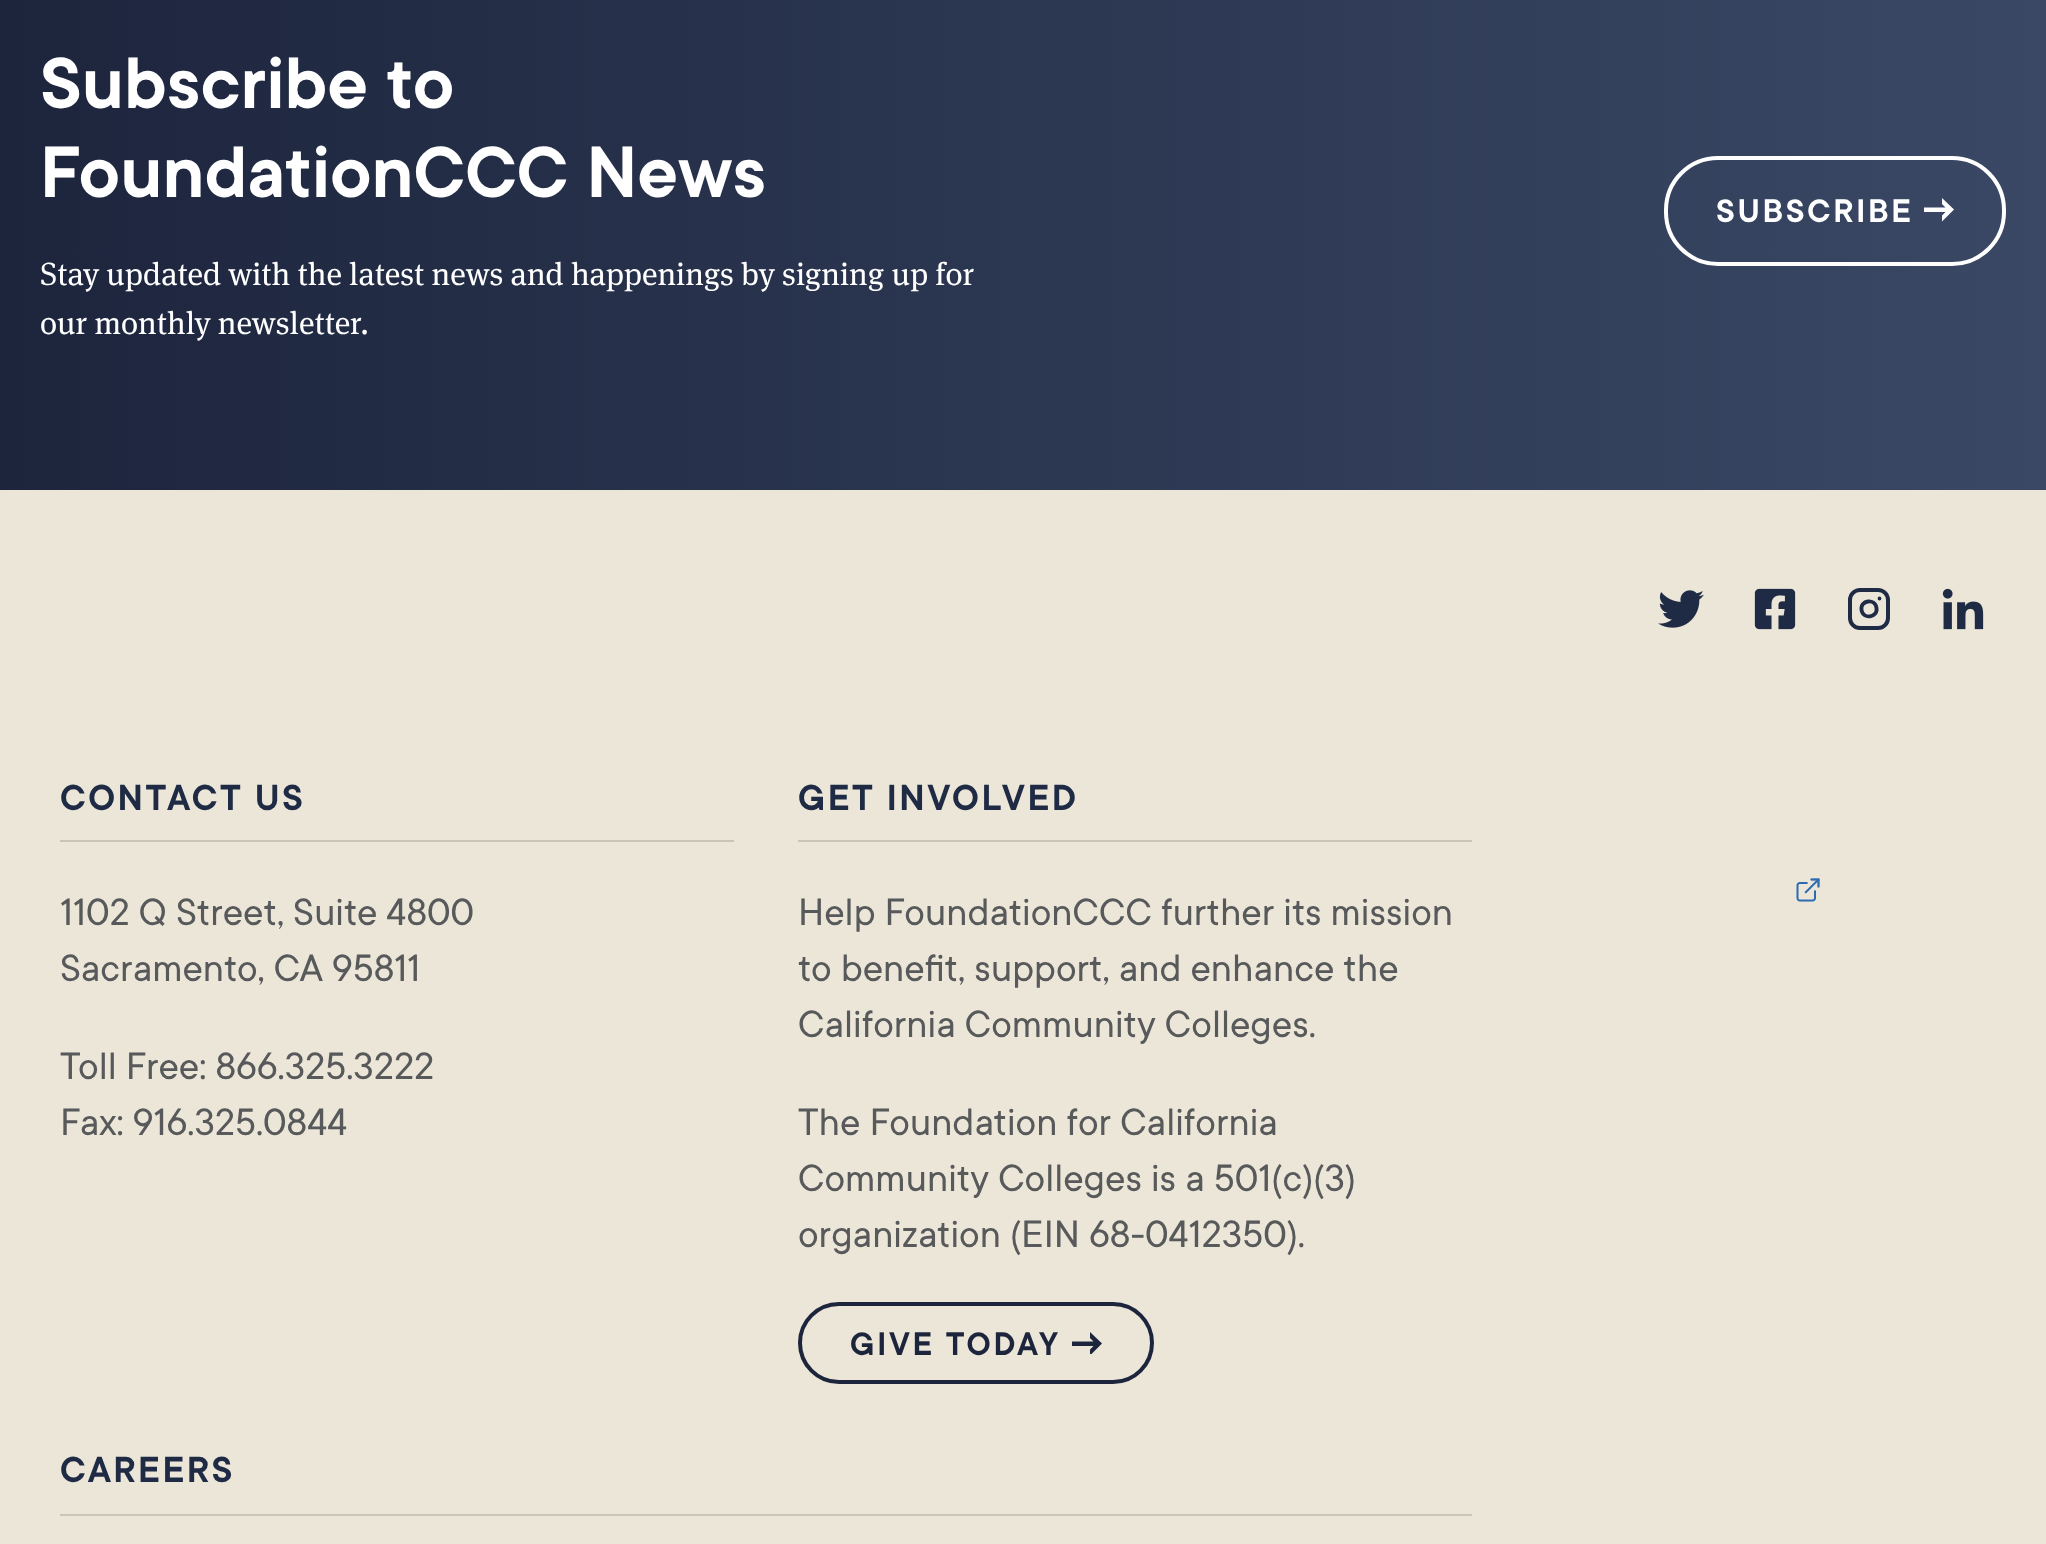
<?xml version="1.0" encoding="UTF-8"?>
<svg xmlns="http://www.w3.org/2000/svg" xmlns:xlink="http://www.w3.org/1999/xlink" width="2046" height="1544">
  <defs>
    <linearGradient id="g1" gradientUnits="userSpaceOnUse" x1="0" y1="207" x2="2046" y2="207"><stop offset="0" stop-color="#1d253d" /><stop offset="1" stop-color="#3a4865" /></linearGradient>
    <clipPath id="clip1"><rect x="1072" y="1332" width="30" height="22" /></clipPath>
  </defs>
  <rect width="100%" height="100%" fill="#ffffff" />
  <rect width="2046" height="490" fill="url(#g1)" />
  <rect x="1666" y="158" width="338" height="106" rx="52" fill="none" stroke="#ffffff" stroke-width="4" />
  <path d="M 1942 198 v 6 l 3.5 3.5 h -21.5 v 4.5 h 21.5 l -3.5 3.5 v 6 l 12 -12 z" fill="#ffffff" />
  <rect y="490" width="2046" height="1054" fill="#ebe6d8" />
  <image x="1658" y="590" width="46" height="38" xlink:href="image1.png" />
  <image x="1754" y="588" width="42" height="42" xlink:href="image2.png" />
  <rect x="1850" y="590" width="38" height="38" rx="10" fill="none" stroke="#1f2a44" stroke-width="4" />
  <path d="M 1876.5 608 c 1.5 9.5 -13.5 12 -15 2 c -1.5 -10 13.5 -12 15 -2 z m 3 -9.5 h 0" fill="none" stroke="#1f2a44" stroke-width="3.8" stroke-linecap="round" stroke-linejoin="round" />
  <image x="1942" y="588" width="42" height="42" xlink:href="image3.png" />
  <rect x="60" y="840" width="674" height="2" fill="#cbc4b5" />
  <rect x="798" y="840" width="674" height="2" fill="#cbc4b5" />
  <rect x="800" y="1304" width="352" height="78" rx="39" fill="none" stroke="#1d253d" stroke-width="4" />
  <g clip-path="url(#clip1)">
    <path d="M 1090 1332 v 6 l 3.5 3.5 h -21.5 v 4.5 h 21.5 l -3.5 3.5 v 6 l 12 -12 z" fill="#1d253d" />
  </g>
  <rect x="60" y="1514" width="1412" height="2" fill="#cbc4b5" />
  <image x="1796" y="878" width="24" height="24" xlink:href="image4.png" />
  <text x="40" y="108" style="font-family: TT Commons; font-size: 80px; font-weight: 600; fill: #ffffff">Subscribe to</text>
  <text x="40" y="197" style="font-family: TT Commons; font-size: 80px; font-weight: 600; fill: #ffffff">FoundationCCC News</text>
  <text x="40" y="285" style="font-family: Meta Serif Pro; font-size: 32px; fill: #ffffff">Stay updated with the latest news and happenings by signing up for</text>
  <text x="40" y="334" style="font-family: Meta Serif Pro; font-size: 32px; fill: #ffffff">our monthly newsletter.</text>
  <text x="1716" y="222" style="font-family: TT Commons; font-size: 36px; font-weight: 600; letter-spacing: 2.75px; fill: #ffffff">SUBSCRIBE</text>
  <text x="60" y="810" style="font-family: TT Commons; font-size: 40px; font-weight: 600; letter-spacing: 2.5px; fill: #1f2a44">CONTACT US</text>
  <text x="60" y="925" style="font-family: TT Commons; font-size: 42px; fill: #58595b">1102 Q Street, Suite 4800</text>
  <text x="60" y="981" style="font-family: TT Commons; font-size: 42px; fill: #58595b">Sacramento, CA 95811</text>
  <text x="60" y="1079" style="font-family: TT Commons; font-size: 42px; fill: #58595b">Toll Free: 866.325.3222</text>
  <text x="60" y="1135" style="font-family: TT Commons; font-size: 42px; fill: #58595b">Fax: 916.325.0844</text>
  <text x="798" y="810" style="font-family: TT Commons; font-size: 40px; font-weight: 600; letter-spacing: 2.5px; fill: #1f2a44">GET INVOLVED</text>
  <text x="798" y="925" style="font-family: TT Commons; font-size: 42px; fill: #58595b">Help FoundationCCC further its mission</text>
  <text x="798" y="981" style="font-family: TT Commons; font-size: 42px; fill: #58595b">to benefit, support, and enhance the</text>
  <text x="798" y="1037" style="font-family: TT Commons; font-size: 42px; fill: #58595b">California Community Colleges.</text>
  <text x="798" y="1135" style="font-family: TT Commons; font-size: 42px; fill: #58595b">The Foundation for California</text>
  <text x="798" y="1191" style="font-family: TT Commons; font-size: 42px; fill: #58595b">Community Colleges is a 501(c)(3)</text>
  <text x="798" y="1247" style="font-family: TT Commons; font-size: 42px; fill: #58595b">organization (EIN 68-0412350).</text>
  <text x="850" y="1355" style="font-family: TT Commons; font-size: 36px; font-weight: 600; letter-spacing: 2.75px; fill: #1d253d">GIVE TODAY</text>
  <text x="60" y="1482" style="font-family: TT Commons; font-size: 40px; font-weight: 600; letter-spacing: 2.5px; fill: #1f2a44">CAREERS</text>
</svg>
